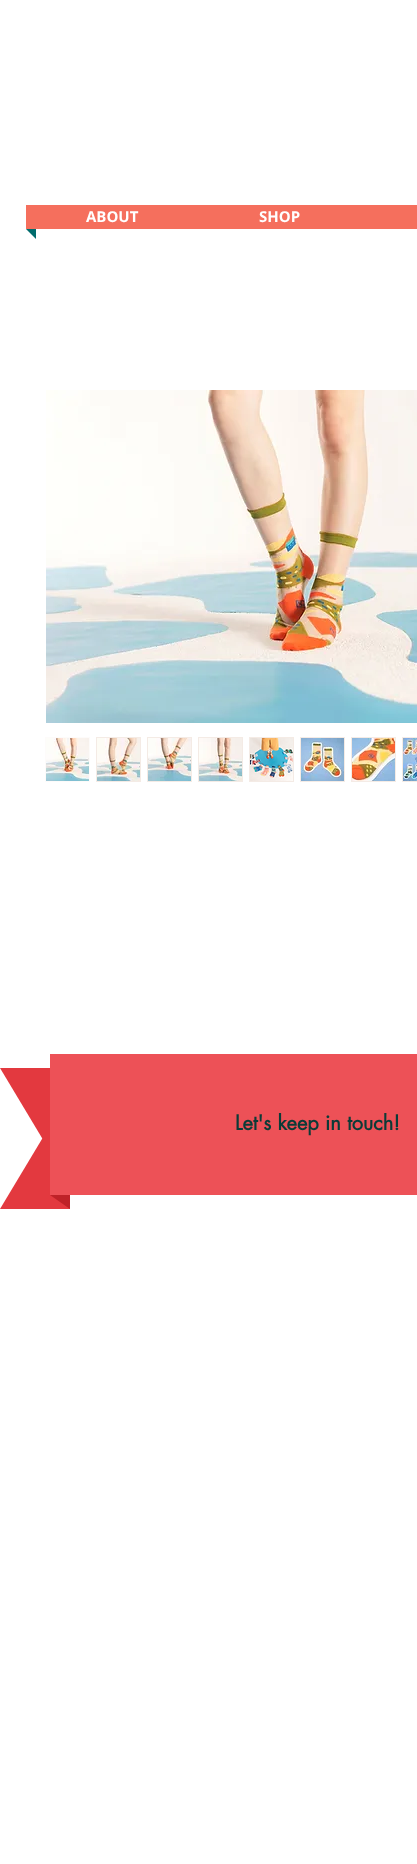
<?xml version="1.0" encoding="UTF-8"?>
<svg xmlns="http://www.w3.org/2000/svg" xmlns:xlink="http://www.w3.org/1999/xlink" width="417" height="1864">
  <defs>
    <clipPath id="clip1"><rect y="1138" width="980" height="71" /></clipPath>
  </defs>
  <rect width="100%" height="100%" fill="#ffffff" />
  <rect x="26" y="205" width="391" height="24" fill="#f56f5d" />
  <path d="M 26 229 h 10 v 10 z" fill="#006c6d" />
  <image x="46" y="390" width="371" height="333" xlink:href="image1.png" />
  <rect x="45.5" y="737.5" width="44" height="44" fill="none" stroke="#fdfbfa" />
  <image x="46" y="738" width="43" height="43" xlink:href="image2.png" />
  <rect x="96" y="737" width="45" height="45" fill="#f4ebe5" />
  <image x="97" y="738" width="43" height="43" xlink:href="image3.png" />
  <rect x="147" y="737" width="45" height="45" fill="#f4ebe5" />
  <image x="148" y="738" width="43" height="43" xlink:href="image4.png" />
  <rect x="198" y="737" width="45" height="45" fill="#f4ebe5" />
  <image x="199" y="738" width="43" height="43" xlink:href="image5.png" />
  <rect x="249" y="737" width="45" height="45" fill="#f4ebe5" />
  <image x="250" y="738" width="43" height="43" xlink:href="image6.png" />
  <rect x="300" y="737" width="45" height="45" fill="#f4ebe5" />
  <image x="301" y="738" width="43" height="43" xlink:href="image7.png" />
  <rect x="351" y="737" width="45" height="45" fill="#f4ebe5" />
  <image x="352" y="738" width="43" height="43" xlink:href="image8.png" />
  <rect x="402" y="737" width="15" height="45" fill="#f4ebe5" />
  <image x="403" y="738" width="14" height="43" xlink:href="image9.png" />
  <path d="M 0 1068 h 70 v 100 h -10 z" fill="#e3393f" />
  <g clip-path="url(#clip1)">
    <path d="M 70 1209 h -70 l 60 -100 h 10 z" fill="#e3393f" />
  </g>
  <rect x="50" y="1054" width="367" height="141" fill="#ed5157" />
  <path d="M 70 1195 v 14 l -20 -14 z" fill="#bf2228" />
  <text x="86" y="222" style="font-family: Open Sans; font-size: 15px; font-weight: bold; fill: #ffffff">ABOUT</text>
  <text x="259" y="222" style="font-family: Open Sans; font-size: 15px; font-weight: bold; fill: #ffffff">SHOP</text>
  <text x="235" y="1130" style="font-family: futura; font-size: 20px; font-weight: bold; fill: #0b3b37">Let's keep in touch!</text>
</svg>
